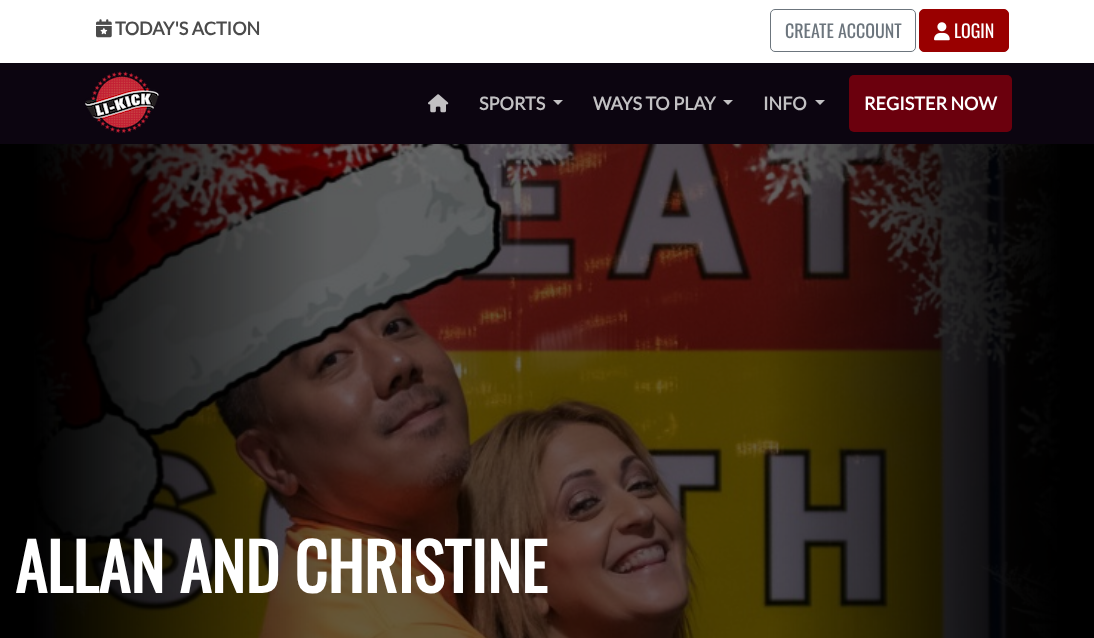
<?xml version="1.0" encoding="UTF-8"?>
<svg xmlns="http://www.w3.org/2000/svg" xmlns:xlink="http://www.w3.org/1999/xlink" width="1094" height="638">
  <rect width="100%" height="100%" fill="#ffffff" />
  <image x="96" y="19" width="16" height="19" xlink:href="image1.png" />
  <rect x="770.5" y="9.5" width="145" height="42" rx="4.5" fill="none" stroke="#6c757d" />
  <rect x="919.5" y="9.5" width="89" height="42" rx="4.5" fill="#990000" stroke="#990000" />
  <image x="934" y="22" width="16" height="19" xlink:href="image2.png" />
  <rect y="63" width="1094" height="81" fill="#0c0510" />
  <image x="85" y="71" width="74" height="63" xlink:href="image3.png" />
  <image x="428" y="94" width="21" height="19" xlink:href="image4.png" />
  <path d="M 553 100 h 10 l -5 5 z" fill="#c2c1c3" />
  <path d="M 723 100 h 10 l -5 5 z" fill="#c2c1c3" />
  <path d="M 815 100 h 10 l -5 5 z" fill="#c2c1c3" />
  <rect x="849" y="75" width="163" height="57" rx="5" fill="#6b000d" />
  <image x="0" y="144" width="1094" height="494" xlink:href="image5.png" />
  <text x="115" y="35" style="font-family: Lato; font-size: 18px; font-weight: bold; fill: #4b4b4b">TODAY'S ACTION</text>
  <text x="785" y="38" style="font-family: Oswald; font-size: 18px; fill: #6c757d">CREATE ACCOUNT</text>
  <text x="954" y="38" style="font-family: Oswald; font-size: 18px; fill: #ffffff">LOGIN</text>
  <text x="479" y="110" style="font-family: Lato; font-size: 18px; font-weight: bold; fill: #c2c1c3">SPORTS</text>
  <text x="593" y="110" style="font-family: Lato; font-size: 18px; font-weight: bold; fill: #c2c1c3">WAYS TO PLAY</text>
  <text x="763" y="110" style="font-family: Lato; font-size: 18px; font-weight: bold; fill: #c2c1c3">INFO</text>
  <text x="864" y="110" style="font-family: Lato; font-size: 18px; font-weight: bold; fill: #ffffff">REGISTER NOW</text>
  <text x="15" y="593" style="font-family: Oswald; font-size: 64.75px; font-weight: bold; fill: #ffffff">ALLAN AND CHRISTINE</text>
</svg>
